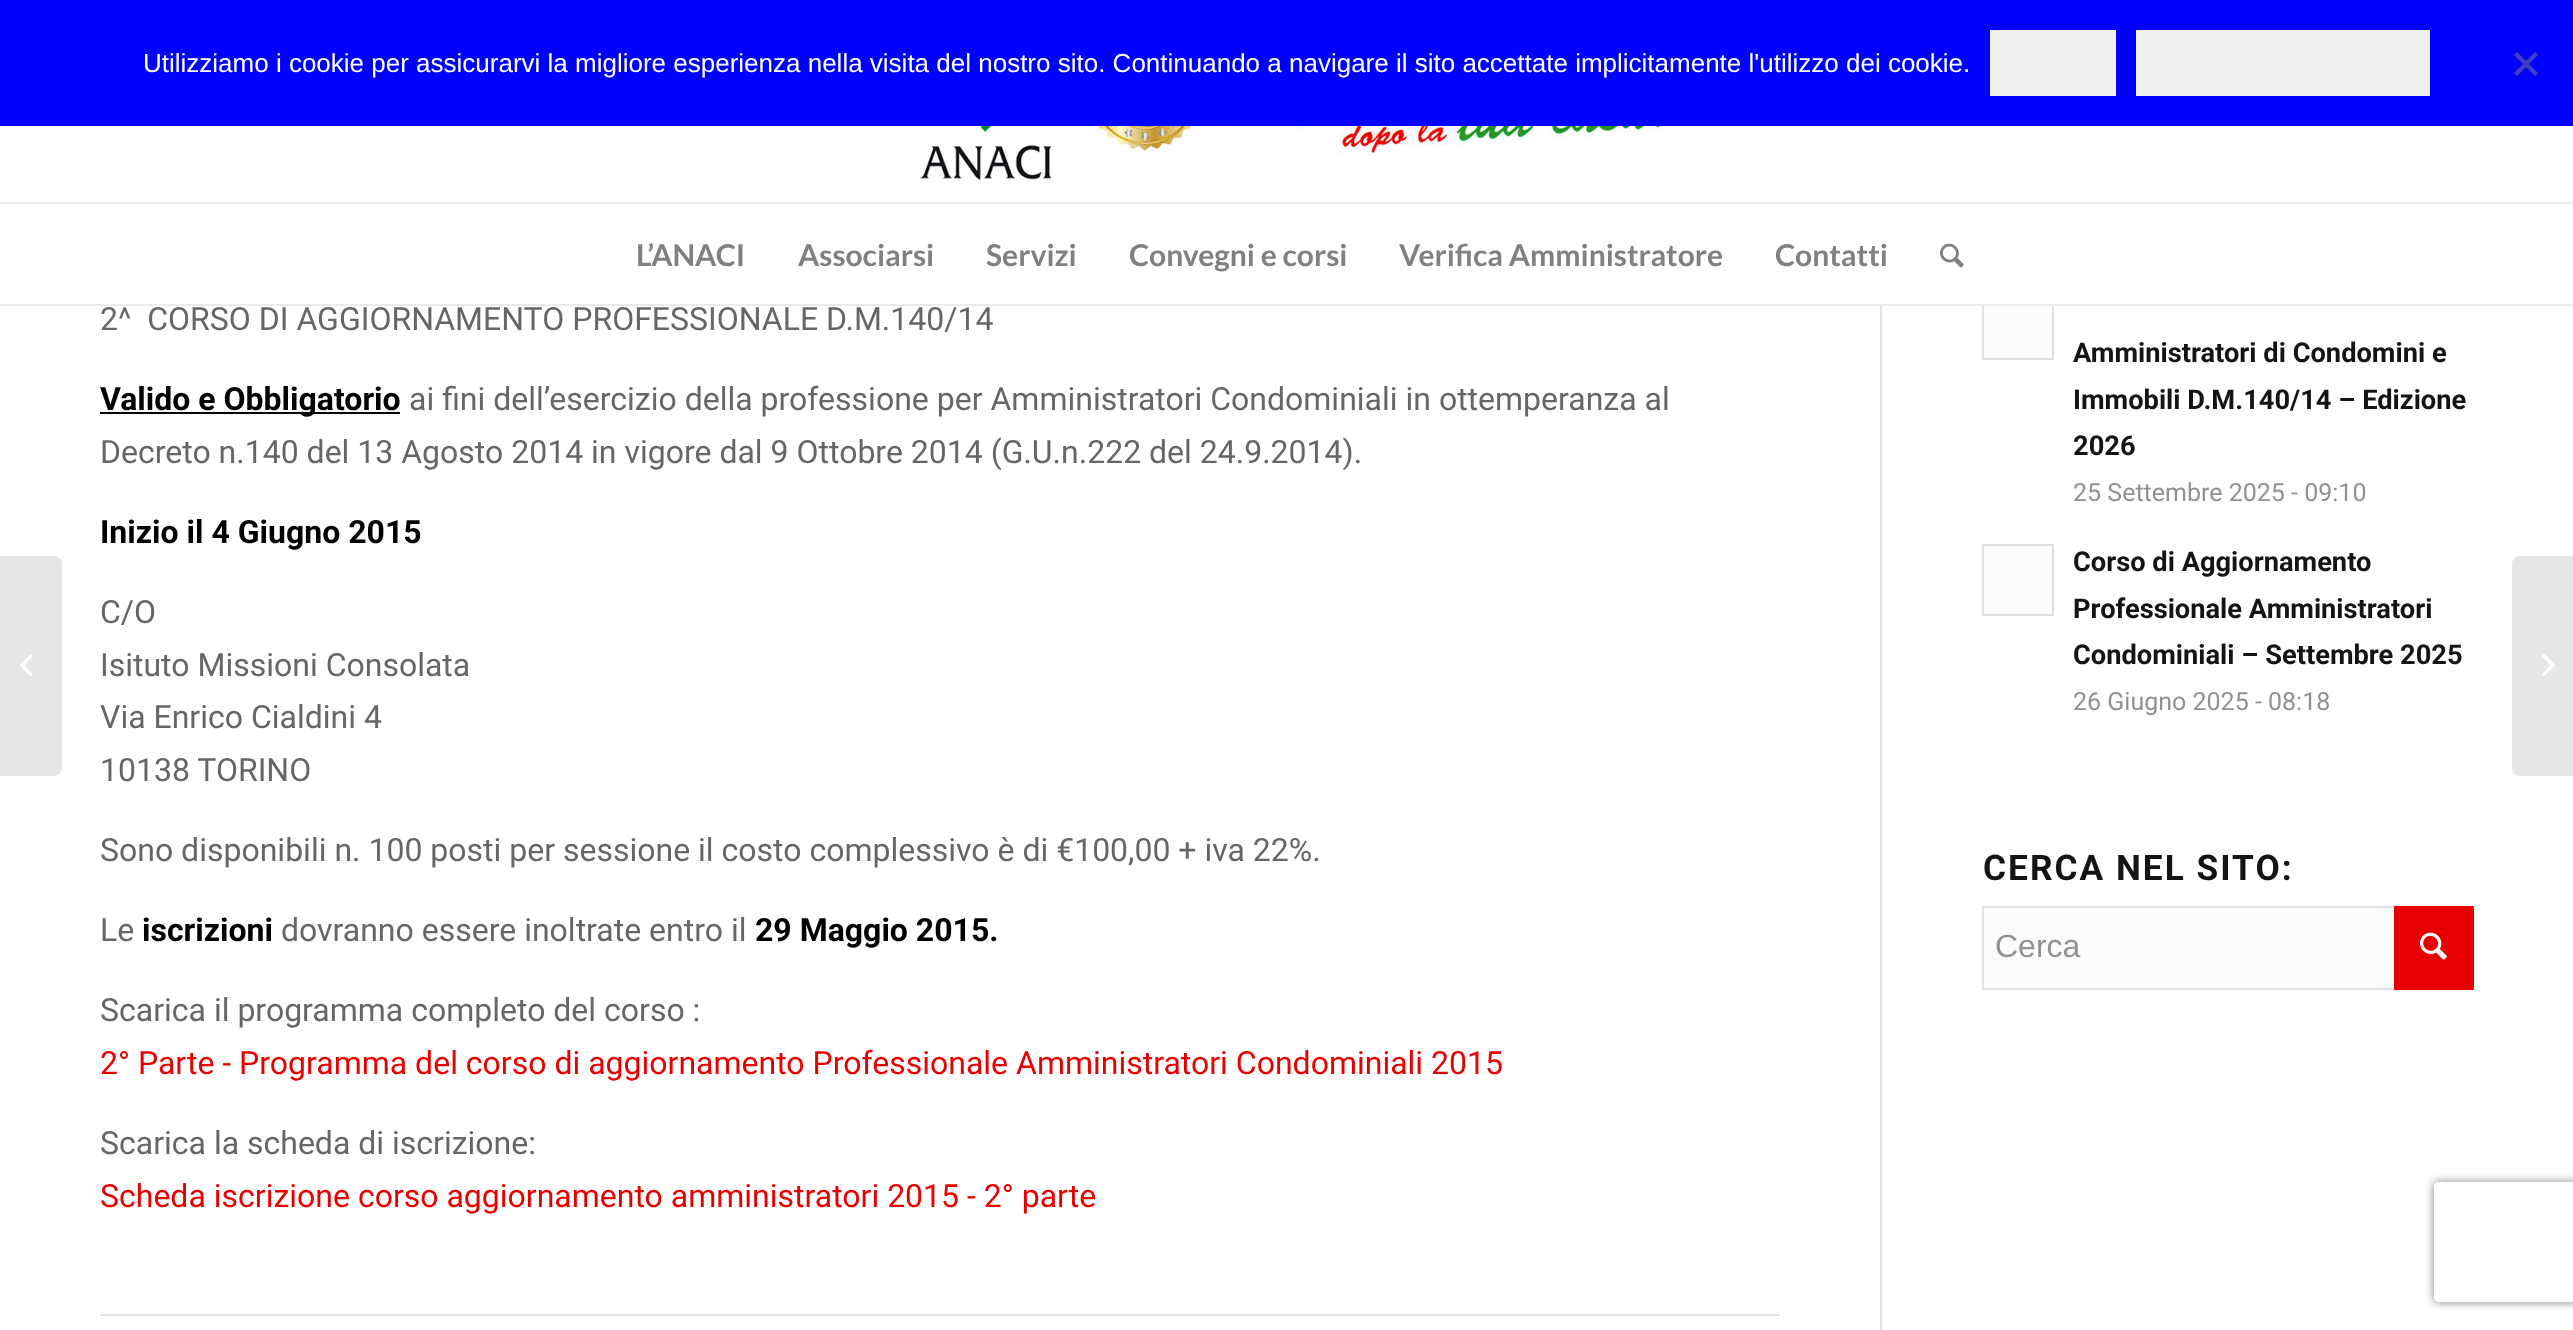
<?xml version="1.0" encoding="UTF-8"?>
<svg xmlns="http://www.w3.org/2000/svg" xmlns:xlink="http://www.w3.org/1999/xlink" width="2573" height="1330">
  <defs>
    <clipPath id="clip1"><path d="M 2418 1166 h 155 v 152 h -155 z m 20 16 h 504 c 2 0 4 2 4 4 v 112 c 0 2 -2 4 -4 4 h -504 c -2 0 -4 -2 -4 -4 v -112 c 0 -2 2 -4 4 -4 z" clip-rule="evenodd" /></clipPath>
  </defs>
  <rect width="100%" height="100%" fill="#ffffff" />
  <rect x="1984" y="126" width="68" height="24" fill="#fcfcfc" />
  <rect x="1983" y="81" width="70" height="70" fill="none" stroke="#e1e1e1" stroke-width="2" />
  <rect width="2573" height="126" fill="#0000ff" />
  <rect x="1990" y="30" width="126" height="66" fill="#efefef" />
  <rect x="2136" y="30" width="294" height="66" fill="#efefef" />
  <path d="M 2535 52 l 3 3 l -21 21 l -3 -3 z" fill="#4040c0" />
  <path d="M 2514 55 l 3 -3 l 21 21 l -3 3 z" fill="#4040c0" />
  <rect x="1880" y="126" width="2" height="1204" fill="#e1e1e1" />
  <rect x="1983" y="289" width="70" height="70" fill="#fcfcfc" stroke="#e1e1e1" stroke-width="2" />
  <rect y="304" width="2573" height="2" fill="#e6ede7" />
  <image x="889" y="126" width="790" height="58" xlink:href="image1.png" />
  <rect x="1880" y="126" width="174" height="178" fill="#ffffff" fill-opacity="0.95" />
  <rect y="202" width="2573" height="2" fill="#e6ede7" />
  <image x="1940" y="243" width="24" height="25" xlink:href="image2.png" />
  <path d="M 0 556 h 54 c 4.5 0 8 3.5 8 8 v 204 c 0 4.5 -3.5 8 -8 8 h -54 z" fill="#e6e6e6" />
  <image x="20" y="654" width="13" height="22" xlink:href="image3.png" />
  <rect x="100" y="412" width="300" height="2" fill="#000000" />
  <rect x="100" y="1314" width="1680" height="2" fill="#e1e1e1" />
  <rect x="1983" y="545" width="70" height="70" fill="#fcfcfc" stroke="#e1e1e1" stroke-width="2" />
  <rect x="1984" y="908" width="410" height="80" fill="#fcfcfc" />
  <rect x="1983" y="907" width="490" height="82" fill="none" stroke="#e1e1e1" stroke-width="2" />
  <rect x="2394" y="906" width="80" height="84" fill="#e80000" />
  <image x="2420" y="932" width="27" height="28" xlink:href="image4.png" />
  <path d="M 2520 556 h 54 v 220 h -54 c -4.5 0 -8 -3.5 -8 -8 v -204 c 0 -4.5 3.5 -8 8 -8 z" fill="#e6e6e6" />
  <image x="2542" y="654" width="13" height="23" xlink:href="image5.png" />
  <g clip-path="url(#clip1)">
    <rect x="2434" y="1182" width="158" height="120" rx="4" fill="#808080" filter="blur(5px)" />
  </g>
  <text x="143" y="72" style="font-family: Liberation Sans; font-size: 26px; fill: #ffffff">Utilizziamo i cookie per assicurarvi la migliore esperienza nella visita del nostro sito. Continuando a navigare il sito accettate implicitamente l'utilizzo dei cookie.</text>
  <text x="636" y="266" style="font-family: Lato; font-size: 30px; font-weight: bold; fill: #808080">L’ANACI</text>
  <text x="798" y="266" style="font-family: Lato; font-size: 30px; font-weight: bold; fill: #808080">Associarsi</text>
  <text x="986" y="266" style="font-family: Lato; font-size: 30px; font-weight: bold; fill: #808080">Servizi</text>
  <text x="1129" y="266" style="font-family: Lato; font-size: 30px; font-weight: bold; fill: #808080">Convegni e corsi</text>
  <text x="1399" y="266" style="font-family: Lato; font-size: 30px; font-weight: bold; fill: #808080">Verifica Amministratore</text>
  <text x="1775" y="266" style="font-family: Lato; font-size: 30px; font-weight: bold; fill: #808080">Contatti</text>
  <text x="100" y="330" style="font-family: Roboto; font-size: 32px; fill: #666666" xml:space="preserve">2^  CORSO DI AGGIORNAMENTO PROFESSIONALE D.M.140/14</text>
  <text x="100" y="410" style="font-family: Roboto; font-size: 32px; font-weight: bold; fill: #000000">Valido e Obbligatorio</text>
  <text x="409" y="410" style="font-family: Roboto; font-size: 32px; fill: #666666">ai fini dell’esercizio della professione per Amministratori Condominiali in ottemperanza al</text>
  <text x="100" y="463" style="font-family: Roboto; font-size: 32px; fill: #666666">Decreto n.140 del 13 Agosto 2014 in vigore dal 9 Ottobre 2014 (G.U.n.222 del 24.9.2014).</text>
  <text x="100" y="543" style="font-family: Roboto; font-size: 32px; font-weight: bold; fill: #000000">Inizio il 4 Giugno 2015</text>
  <text x="100" y="623" style="font-family: Roboto; font-size: 32px; fill: #666666">C/O</text>
  <text x="100" y="676" style="font-family: Roboto; font-size: 32px; fill: #666666">Isituto Missioni Consolata</text>
  <text x="100" y="728" style="font-family: Roboto; font-size: 32px; fill: #666666">Via Enrico Cialdini 4</text>
  <text x="100" y="781" style="font-family: Roboto; font-size: 32px; fill: #666666">10138 TORINO</text>
  <text x="100" y="861" style="font-family: Roboto; font-size: 32px; fill: #666666">Sono disponibili n. 100 posti per sessione il costo complessivo è di €100,00 + iva 22%.</text>
  <text x="100" y="941" style="font-family: Roboto; font-size: 32px; fill: #666666">Le</text>
  <text x="142" y="941" style="font-family: Roboto; font-size: 32px; font-weight: bold; fill: #000000">iscrizioni</text>
  <text x="281" y="941" style="font-family: Roboto; font-size: 32px; fill: #666666">dovranno essere inoltrate entro il</text>
  <text x="755" y="941" style="font-family: Roboto; font-size: 32px; font-weight: bold; fill: #000000">29 Maggio 2015.</text>
  <text x="100" y="1021" style="font-family: Roboto; font-size: 32px; fill: #666666">Scarica il programma completo del corso :</text>
  <text x="100" y="1074" style="font-family: Roboto; font-size: 32px; fill: #e80000">2° Parte - Programma del corso di aggiornamento Professionale Amministratori Condominiali 2015</text>
  <text x="100" y="1154" style="font-family: Roboto; font-size: 32px; fill: #666666">Scarica la scheda di iscrizione:</text>
  <text x="100" y="1207" style="font-family: Roboto; font-size: 32px; fill: #e80000">Scheda iscrizione corso aggiornamento amministratori 2015 - 2° parte</text>
  <text x="2073" y="362" style="font-family: Roboto; font-size: 27.25px; font-weight: bold; fill: #141414">Amministratori di Condomini e</text>
  <text x="2073" y="409" style="font-family: Roboto; font-size: 27.25px; font-weight: bold; fill: #141414">Immobili D.M.140/14 – Edizione</text>
  <text x="2073" y="455" style="font-family: Roboto; font-size: 27.25px; font-weight: bold; fill: #141414">2026</text>
  <text x="2073" y="501" style="font-family: Roboto; font-size: 25px; fill: #919191">25 Settembre 2025 - 09:10</text>
  <text x="2073" y="571" style="font-family: Roboto; font-size: 27.25px; font-weight: bold; fill: #141414">Corso di Aggiornamento</text>
  <text x="2073" y="618" style="font-family: Roboto; font-size: 27.25px; font-weight: bold; fill: #141414">Professionale Amministratori</text>
  <text x="2073" y="664" style="font-family: Roboto; font-size: 27.25px; font-weight: bold; fill: #141414">Condominiali – Settembre 2025</text>
  <text x="2073" y="710" style="font-family: Roboto; font-size: 25px; fill: #919191">26 Giugno 2025 - 08:18</text>
  <text x="1983" y="880" style="font-family: Roboto; font-size: 35.25px; font-weight: bold; letter-spacing: 2px; fill: #141414">CERCA NEL SITO:</text>
  <text x="1995" y="957" style="font-family: Liberation Sans; font-size: 32px; fill: #919191">Cerca</text>
</svg>
